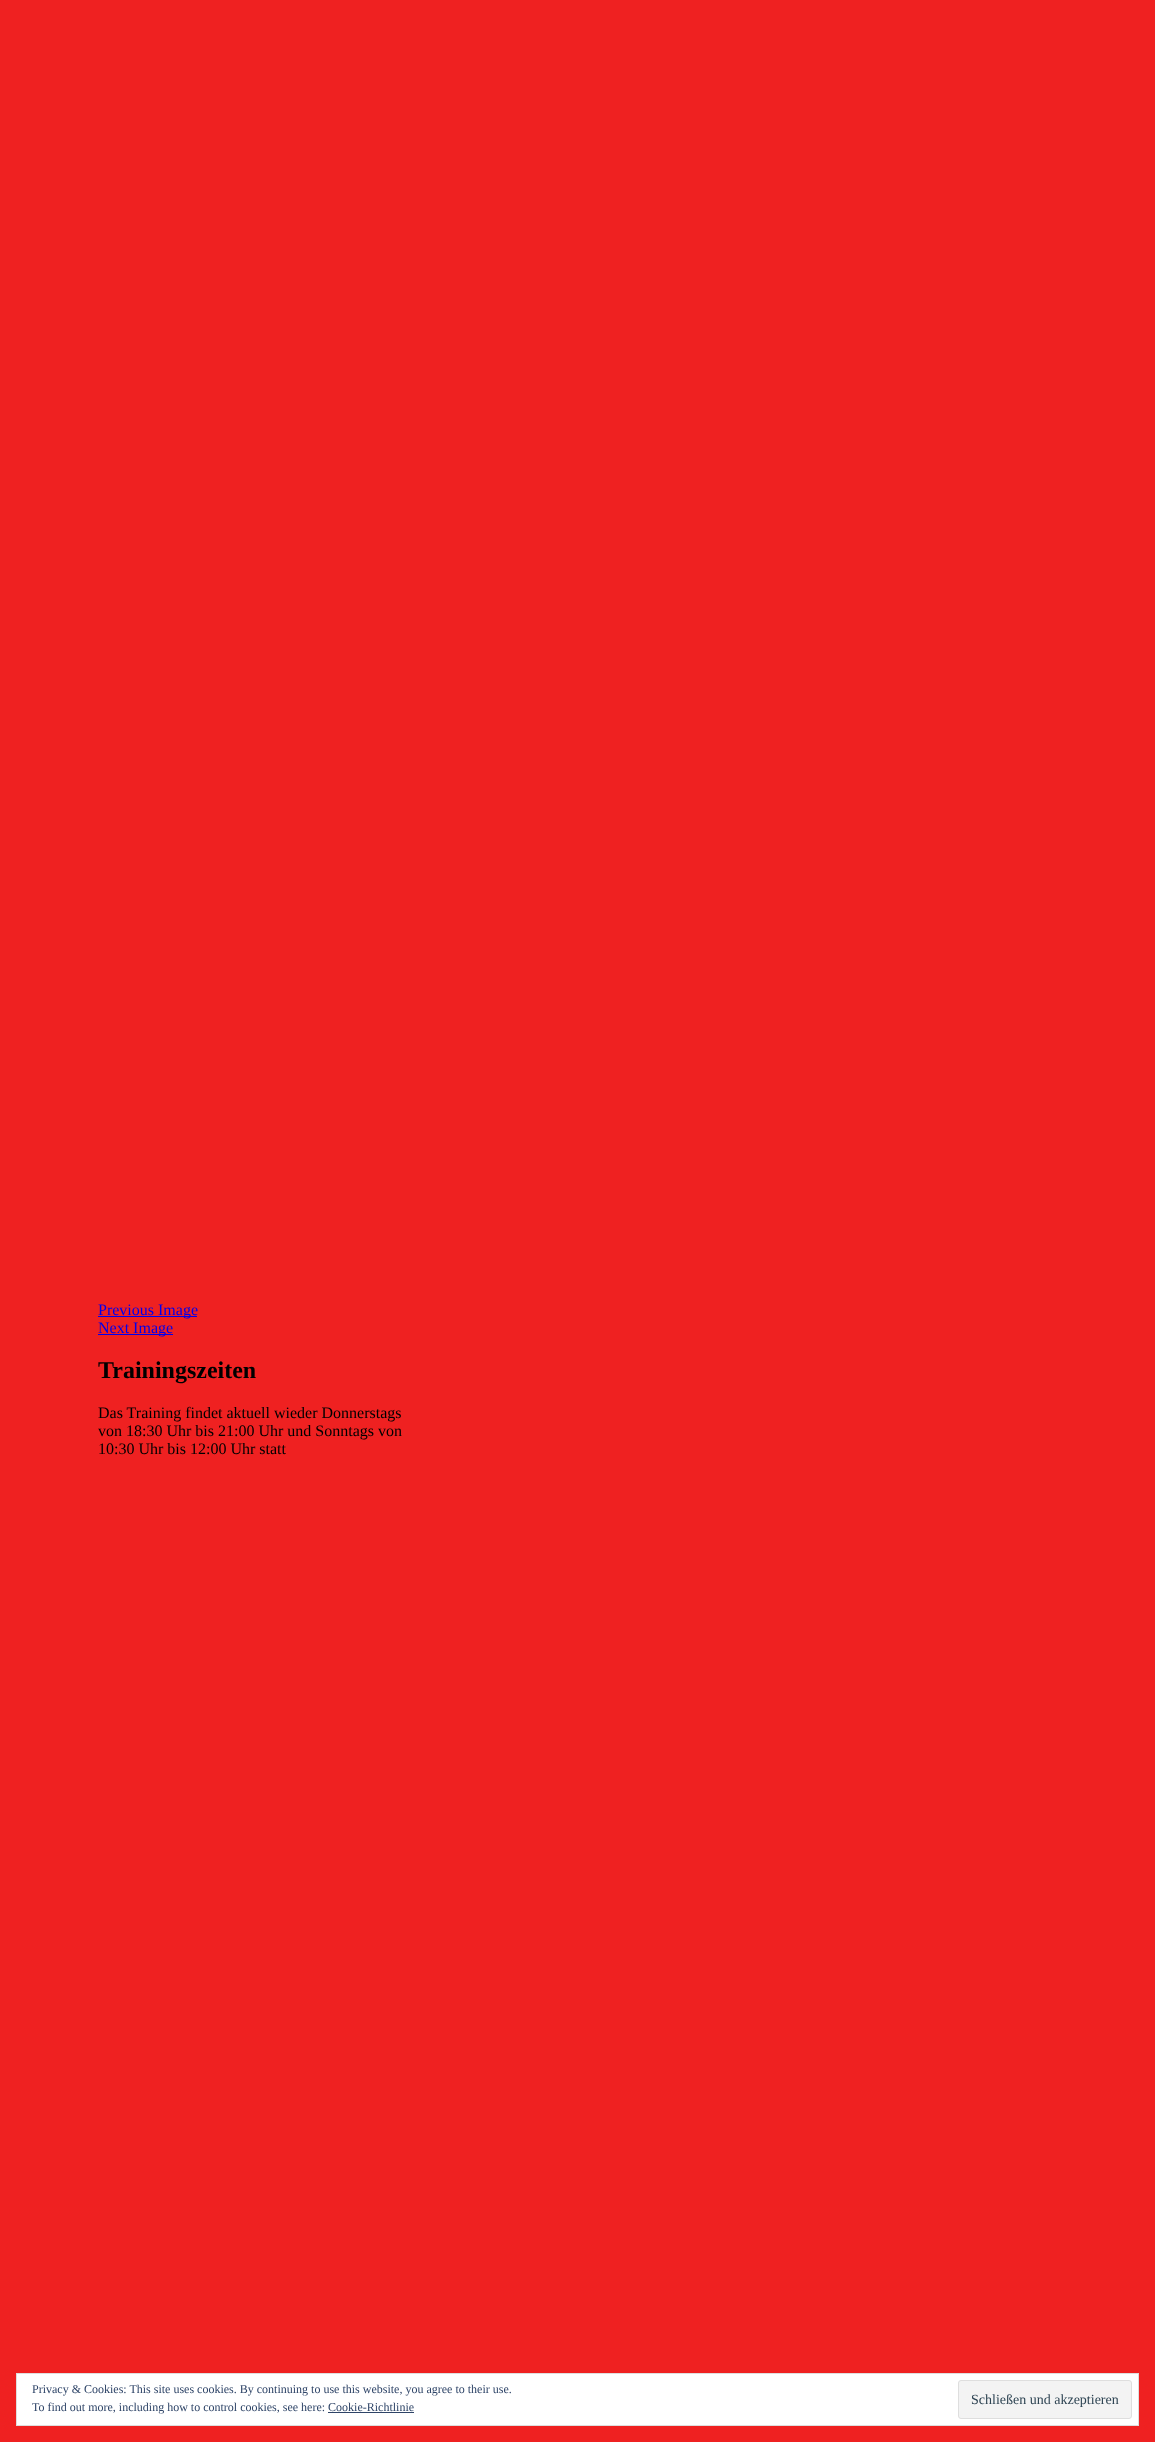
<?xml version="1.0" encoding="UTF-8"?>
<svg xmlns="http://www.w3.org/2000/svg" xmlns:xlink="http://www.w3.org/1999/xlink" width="1155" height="2442">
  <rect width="100%" height="100%" fill="#ef2121" />
  <rect x="98" y="1316" width="99" height="1" fill="#0000ee" />
  <rect x="98" y="1334" width="75" height="1" fill="#0000ee" />
  <rect x="16.5" y="2373.5" width="1122" height="52" fill="#ffffff" stroke="#dedede" />
  <rect x="958.5" y="2380.5" width="173" height="38" rx="2.5" fill="#f3f3f3" stroke="#dedede" />
  <rect x="328" y="2412" width="86" height="1" fill="#2e4467" />
  <text x="98" y="1315" style="font-family: Liberation Serif; font-size: 16px; fill: #0000ee">Previous Image</text>
  <text x="98" y="1333" style="font-family: Liberation Serif; font-size: 16px; fill: #0000ee">Next Image</text>
  <text x="98" y="1378" style="font-family: Liberation Serif; font-size: 24px; font-weight: bold; fill: #000000">Trainingszeiten</text>
  <text x="98" y="1418" style="font-family: Liberation Serif; font-size: 16px; fill: #000000">Das Training findet aktuell wieder Donnerstags</text>
  <text x="98" y="1436" style="font-family: Liberation Serif; font-size: 16px; fill: #000000">von 18:30 Uhr bis 21:00 Uhr und Sonntags von</text>
  <text x="98" y="1454" style="font-family: Liberation Serif; font-size: 16px; fill: #000000">10:30 Uhr bis 12:00 Uhr statt</text>
  <text x="32" y="2393" style="font-family: Liberation Serif; font-size: 12px; fill: #2e4467">Privacy &amp; Cookies: This site uses cookies. By continuing to use this website, you agree to their use.</text>
  <text x="32" y="2411" style="font-family: Liberation Serif; font-size: 12px; fill: #2e4467">To find out more, including how to control cookies, see here: Cookie-Richtlinie</text>
  <text x="971" y="2404" style="font-family: Liberation Serif; font-size: 14px; fill: #2e4453">Schließen und akzeptieren</text>
</svg>
